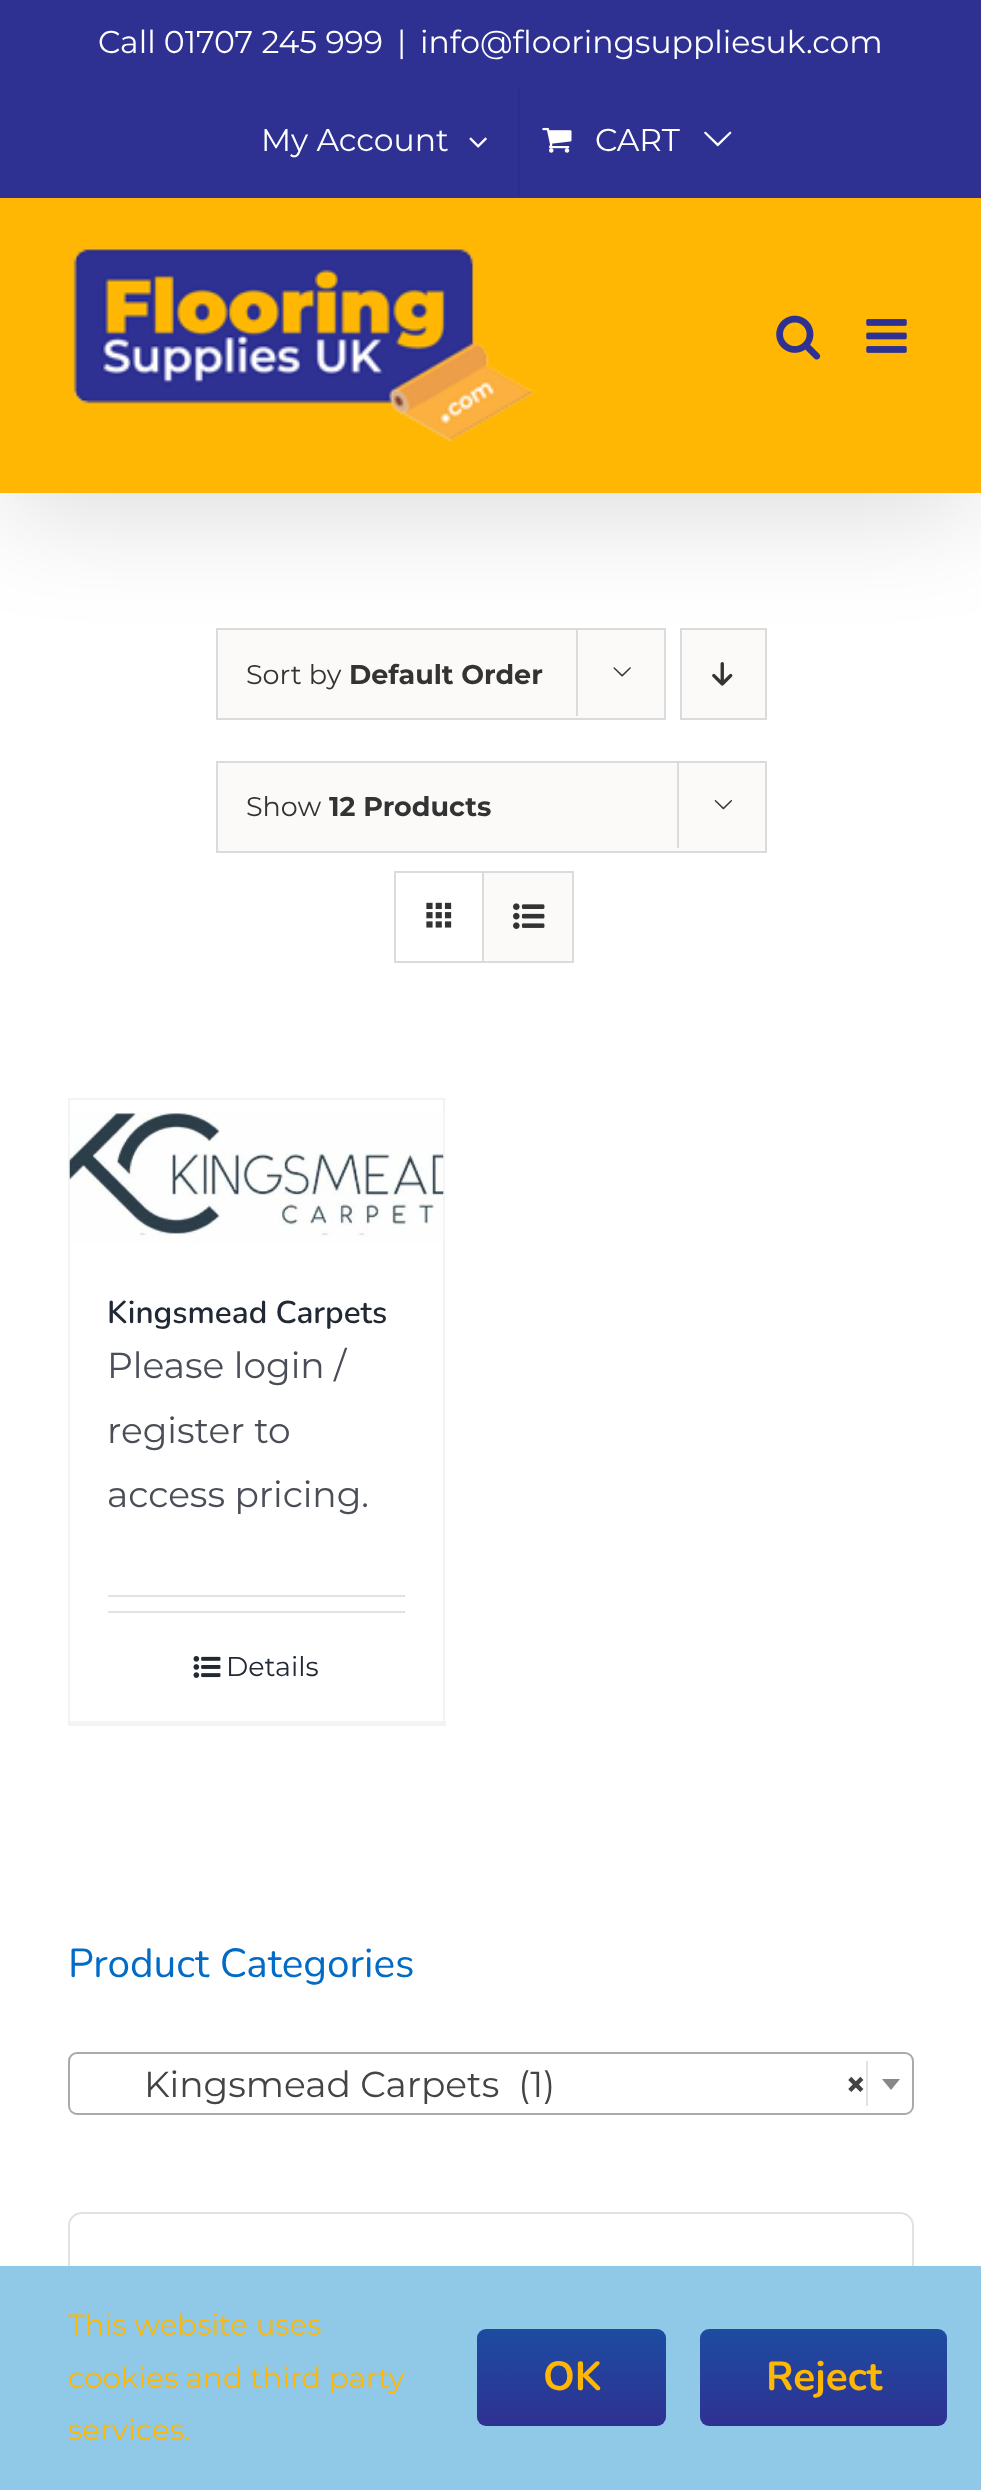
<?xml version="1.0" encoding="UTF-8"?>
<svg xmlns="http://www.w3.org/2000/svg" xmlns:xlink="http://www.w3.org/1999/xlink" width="981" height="2490">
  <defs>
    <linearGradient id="g1" gradientUnits="userSpaceOnUse" x1="572" y1="2329" x2="572" y2="2426"><stop offset="0" stop-color="#1d4ca1" /><stop offset="1" stop-color="#2e3192" /></linearGradient>
    <linearGradient id="g2" gradientUnits="userSpaceOnUse" x1="824" y1="2329" x2="824" y2="2426"><stop offset="0" stop-color="#1d4ca1" /><stop offset="1" stop-color="#2e3192" /></linearGradient>
  </defs>
  <rect width="100%" height="100%" fill="#ffffff" />
  <rect x="217" y="629" width="448" height="90" fill="#fbfaf9" stroke="#dbdbdb" stroke-width="2" />
  <rect x="576" y="628" width="2" height="88" fill="#dbdbdb" />
  <image x="613" y="667" width="18" height="10" xlink:href="image7.png" />
  <rect x="681" y="629" width="85" height="90" fill="#fbfaf9" stroke="#dbdbdb" stroke-width="2" />
  <image x="712" y="662" width="21" height="24" xlink:href="image8.png" />
  <rect x="5" y="27" width="972" height="484" fill="#000000" fill-opacity="0.14" filter="blur(56px)" />
  <rect width="981" height="198" fill="#2e3192" />
  <image x="469" y="137" width="18" height="11" xlink:href="image1.png" />
  <rect x="518" y="88" width="2" height="108" fill="#2b2e89" />
  <image x="542" y="127" width="30" height="26" xlink:href="image2.png" />
  <image x="704" y="131" width="28" height="16" xlink:href="image3.png" />
  <rect y="198" width="981" height="295" fill="#ffb703" />
  <image x="73" y="247" width="461" height="195" xlink:href="image4.png" />
  <image x="776" y="315" width="45" height="45" xlink:href="image5.png" />
  <image x="866" y="319" width="41" height="34" xlink:href="image6.png" />
  <rect x="217" y="762" width="549" height="90" fill="#fbfaf9" stroke="#dbdbdb" stroke-width="2" />
  <rect x="677" y="761" width="2" height="87" fill="#dbdbdb" />
  <image x="714" y="800" width="18" height="10" xlink:href="image9.png" />
  <rect x="395" y="872" width="178" height="90" fill="none" stroke="#dbdbdb" stroke-width="2" />
  <rect x="482" y="873" width="2" height="88" fill="#dbdbdb" />
  <image x="426" y="902" width="26" height="26" xlink:href="image10.png" />
  <rect x="484" y="873" width="88" height="88" fill="#fbfaf9" />
  <image x="513" y="903" width="32" height="26" xlink:href="image11.png" />
  <rect x="68" y="1098" width="378" height="2" fill="#f2f3f5" />
  <rect x="443" y="1098" width="2" height="628" fill="#f2f3f5" />
  <rect x="68" y="1721" width="378" height="5" fill="#f2f3f5" />
  <rect x="68" y="1098" width="2" height="628" fill="#f2f3f5" />
  <image x="69" y="1112" width="375" height="131" xlink:href="image12.png" />
  <rect x="108" y="1595" width="297" height="2" fill="#e2e2e2" />
  <rect x="108" y="1611" width="297" height="2" fill="#e2e2e2" />
  <image x="193" y="1656" width="28" height="22" xlink:href="image13.png" />
  <rect x="69" y="2053" width="844" height="61" rx="8" fill="none" stroke="#aaaaaa" stroke-width="2" />
  <rect x="866" y="2061" width="2" height="45" fill="#e2e2e2" />
  <path d="M 882 2079 h 18 l -9 11 z" fill="#888888" />
  <rect x="69" y="2213" width="844" height="110" rx="13" fill="none" stroke="#e2e2e2" stroke-width="2" />
  <rect y="2266" width="981" height="224" fill="#90c9e8" />
  <rect x="477" y="2329" width="189" height="97" rx="9" fill="url(#g1)" />
  <rect x="700" y="2329" width="247" height="97" rx="9" fill="url(#g2)" />
  <text x="98" y="53" style="font-family: Montserrat; font-size: 31.5px; fill: #ffffff">Call 01707 245 999</text>
  <text x="397" y="53" style="font-family: Montserrat; font-size: 31.5px; fill: #ffffff">|</text>
  <text x="420" y="53" style="font-family: Montserrat; font-size: 31.5px; fill: #ffffff">info@flooringsuppliesuk.com</text>
  <text x="261" y="151" style="font-family: Montserrat; font-size: 31.5px; fill: #ffffff">My Account</text>
  <text x="595" y="151" style="font-family: Montserrat; font-size: 31.5px; fill: #ffffff">CART</text>
  <text x="246" y="684" style="font-family: Montserrat; font-size: 27px; fill: #333333">Sort by</text>
  <text x="349" y="684" style="font-family: Montserrat; font-size: 27px; font-weight: bold; fill: #333333">Default Order</text>
  <text x="246" y="816" style="font-family: Montserrat; font-size: 27px; fill: #333333">Show</text>
  <text x="329" y="816" style="font-family: Montserrat; font-size: 27px; font-weight: bold; fill: #333333">12 Products</text>
  <text x="107" y="1323" style="font-family: Nunito; font-size: 31.5px; font-weight: 600; fill: #212934">Kingsmead Carpets</text>
  <text x="107" y="1378" style="font-family: Montserrat; font-size: 36px; fill: #4a4e57">Please login /</text>
  <text x="107" y="1443" style="font-family: Montserrat; font-size: 36px; fill: #4a4e57">register to</text>
  <text x="107" y="1507" style="font-family: Montserrat; font-size: 36px; fill: #4a4e57">access pricing.</text>
  <text x="226" y="1676" style="font-family: Montserrat; font-size: 27px; fill: #212934">Details</text>
  <text x="68" y="1977" style="font-family: Nunito; font-size: 40.5px; fill: #016bc6">Product Categories</text>
  <text x="144" y="2097" style="font-family: Montserrat; font-size: 36px; fill: #444444" xml:space="preserve">Kingsmead Carpets  (1)</text>
  <text x="845" y="2097" style="font-family: Montserrat; font-size: 36px; font-weight: bold; fill: #444444">×</text>
  <text x="68" y="2335" style="font-family: Montserrat; font-size: 29.25px; fill: #ffb703">This website uses</text>
  <text x="68" y="2388" style="font-family: Montserrat; font-size: 29.25px; fill: #ffb703">cookies and third party</text>
  <text x="68" y="2440" style="font-family: Montserrat; font-size: 29.25px; fill: #ffb703">services.</text>
  <text x="543" y="2390" style="font-family: Nunito; font-size: 40.5px; font-weight: bold; fill: #ffb703">OK</text>
  <text x="766" y="2390" style="font-family: Nunito; font-size: 40.5px; font-weight: bold; fill: #ffb703">Reject</text>
</svg>
